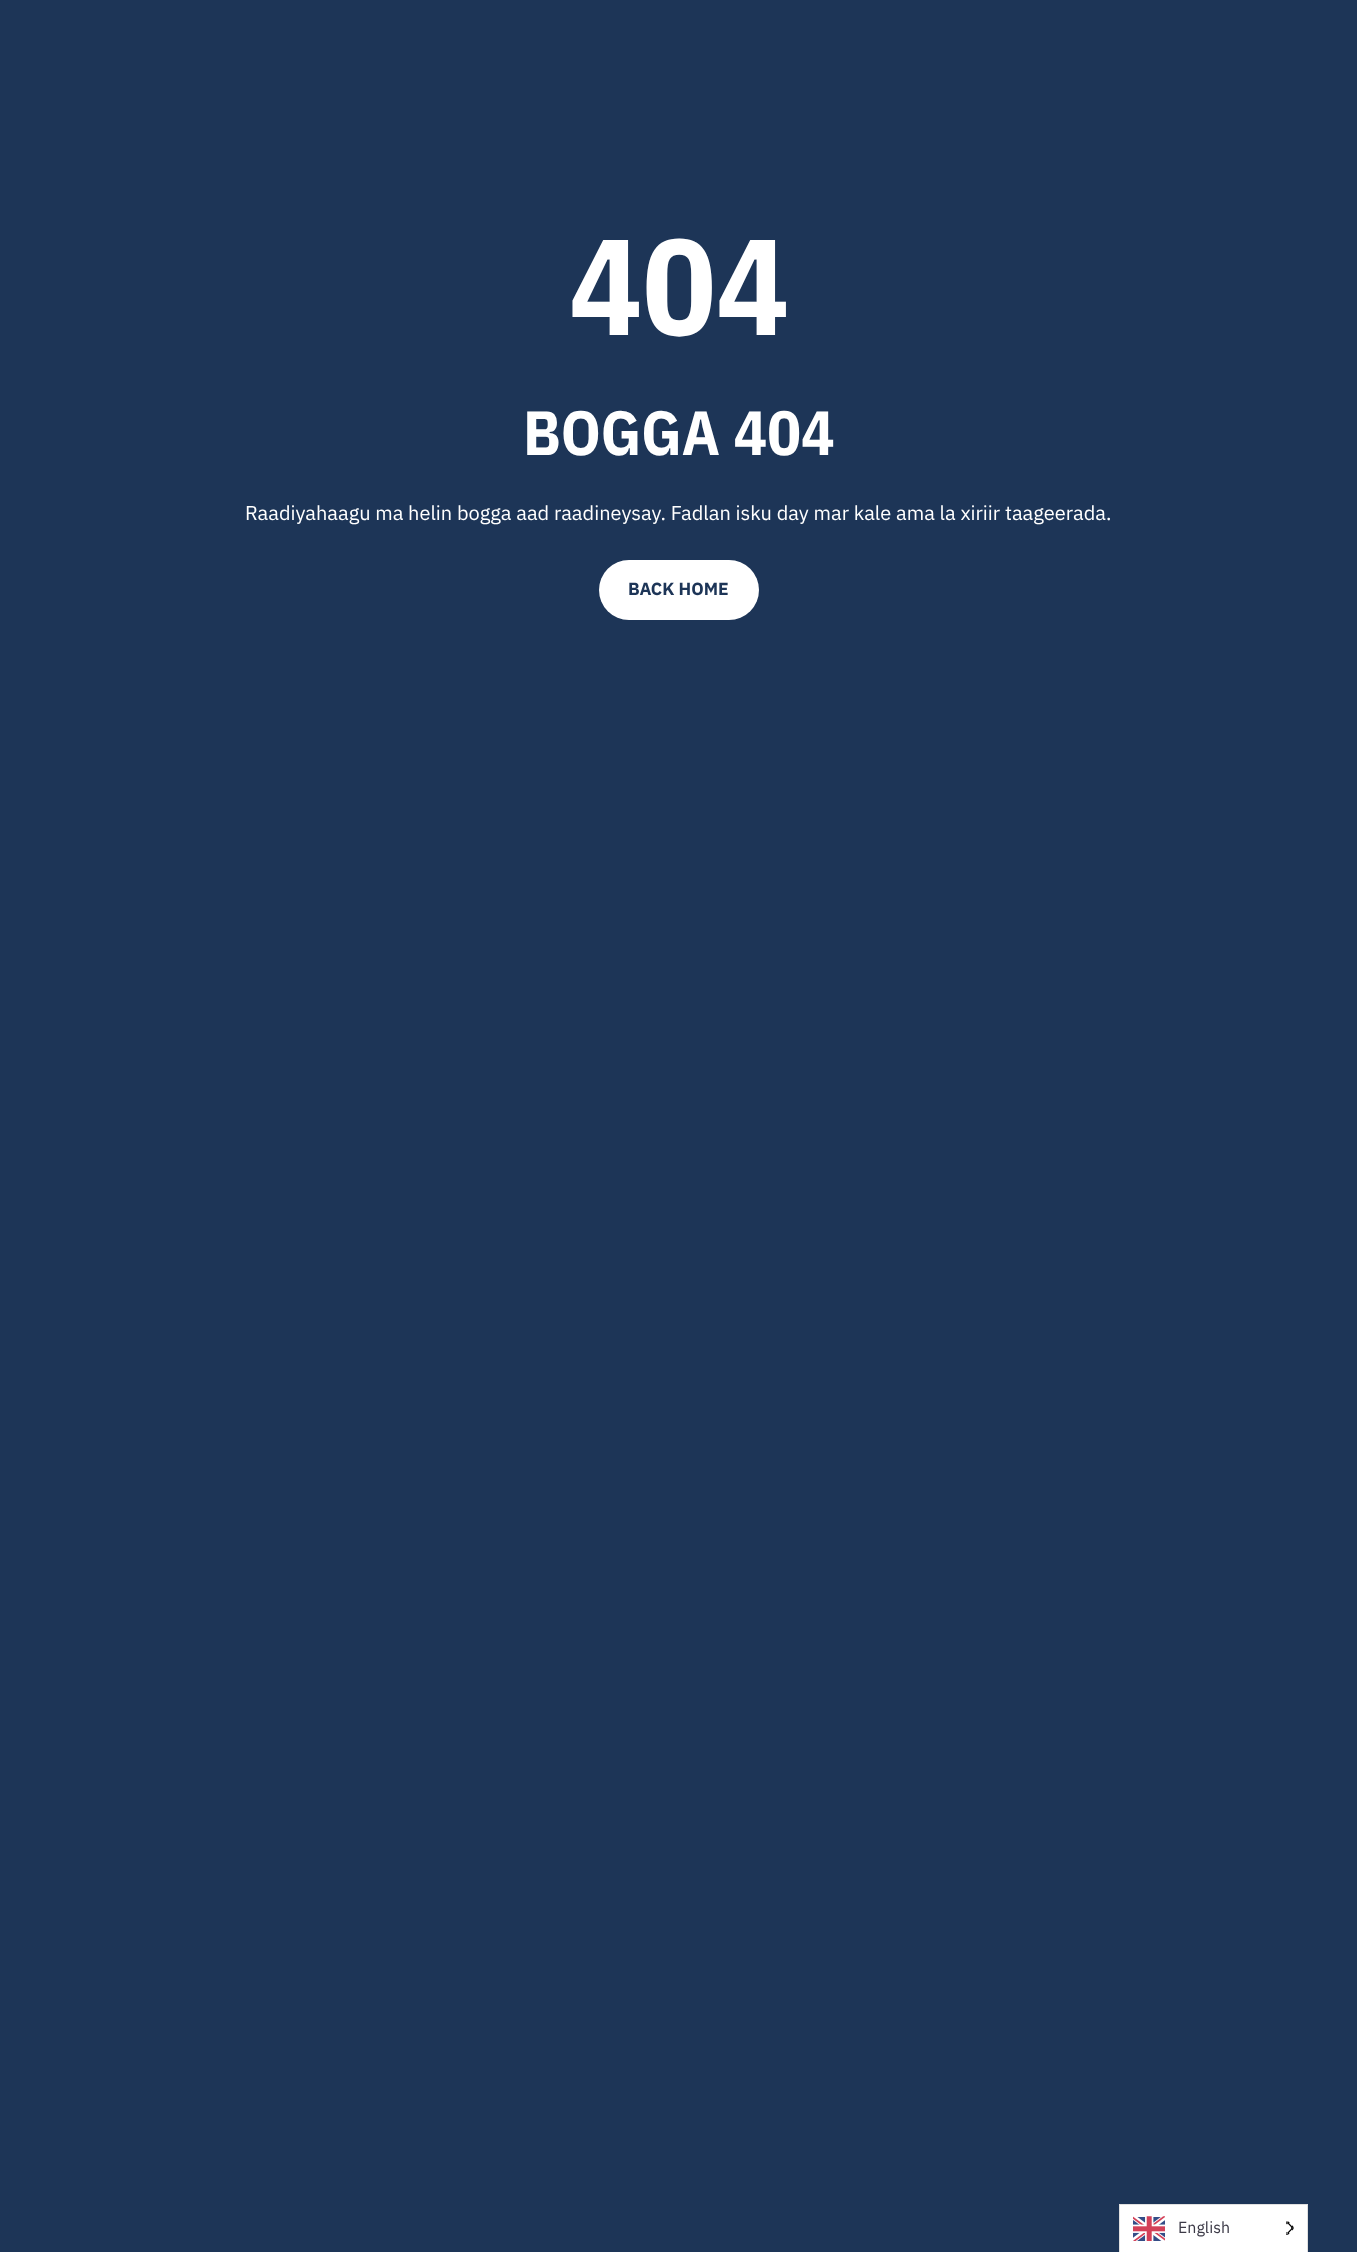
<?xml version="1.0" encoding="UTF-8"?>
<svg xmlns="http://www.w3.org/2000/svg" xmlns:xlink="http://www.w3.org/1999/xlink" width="1357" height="2252">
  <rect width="100%" height="100%" fill="#1d3557" />
  <rect x="599" y="560" width="160" height="60" rx="30" fill="#ffffff" />
  <rect x="1119.5" y="2204.5" width="188" height="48" fill="#ffffff" stroke="#e0e0e0" />
  <image x="1133" y="2216" width="32" height="25" xlink:href="image1.png" />
  <image x="1286" y="2221" width="8" height="14" xlink:href="image2.png" />
  <text x="569" y="335" style="font-family: IBM Plex Sans Condensed; font-size: 136px; font-weight: bold; fill: #ffffff">404</text>
  <text x="523" y="455" style="font-family: IBM Plex Sans Condensed; font-size: 62.5px; font-weight: bold; fill: #ffffff">BOGGA 404</text>
  <text x="245" y="520" style="font-family: IBM Plex Sans; font-size: 20px; fill: #ffffff">Raadiyahaagu ma helin bogga aad raadineysay. Fadlan isku day mar kale ama la xiriir taageerada.</text>
  <text x="628" y="595" style="font-family: IBM Plex Sans; font-size: 17.5px; font-weight: bold; fill: #1d3557">BACK HOME</text>
  <text x="1178" y="2233" style="font-family: IBM Plex Sans; font-size: 16px; fill: #3c3a47">English</text>
</svg>
